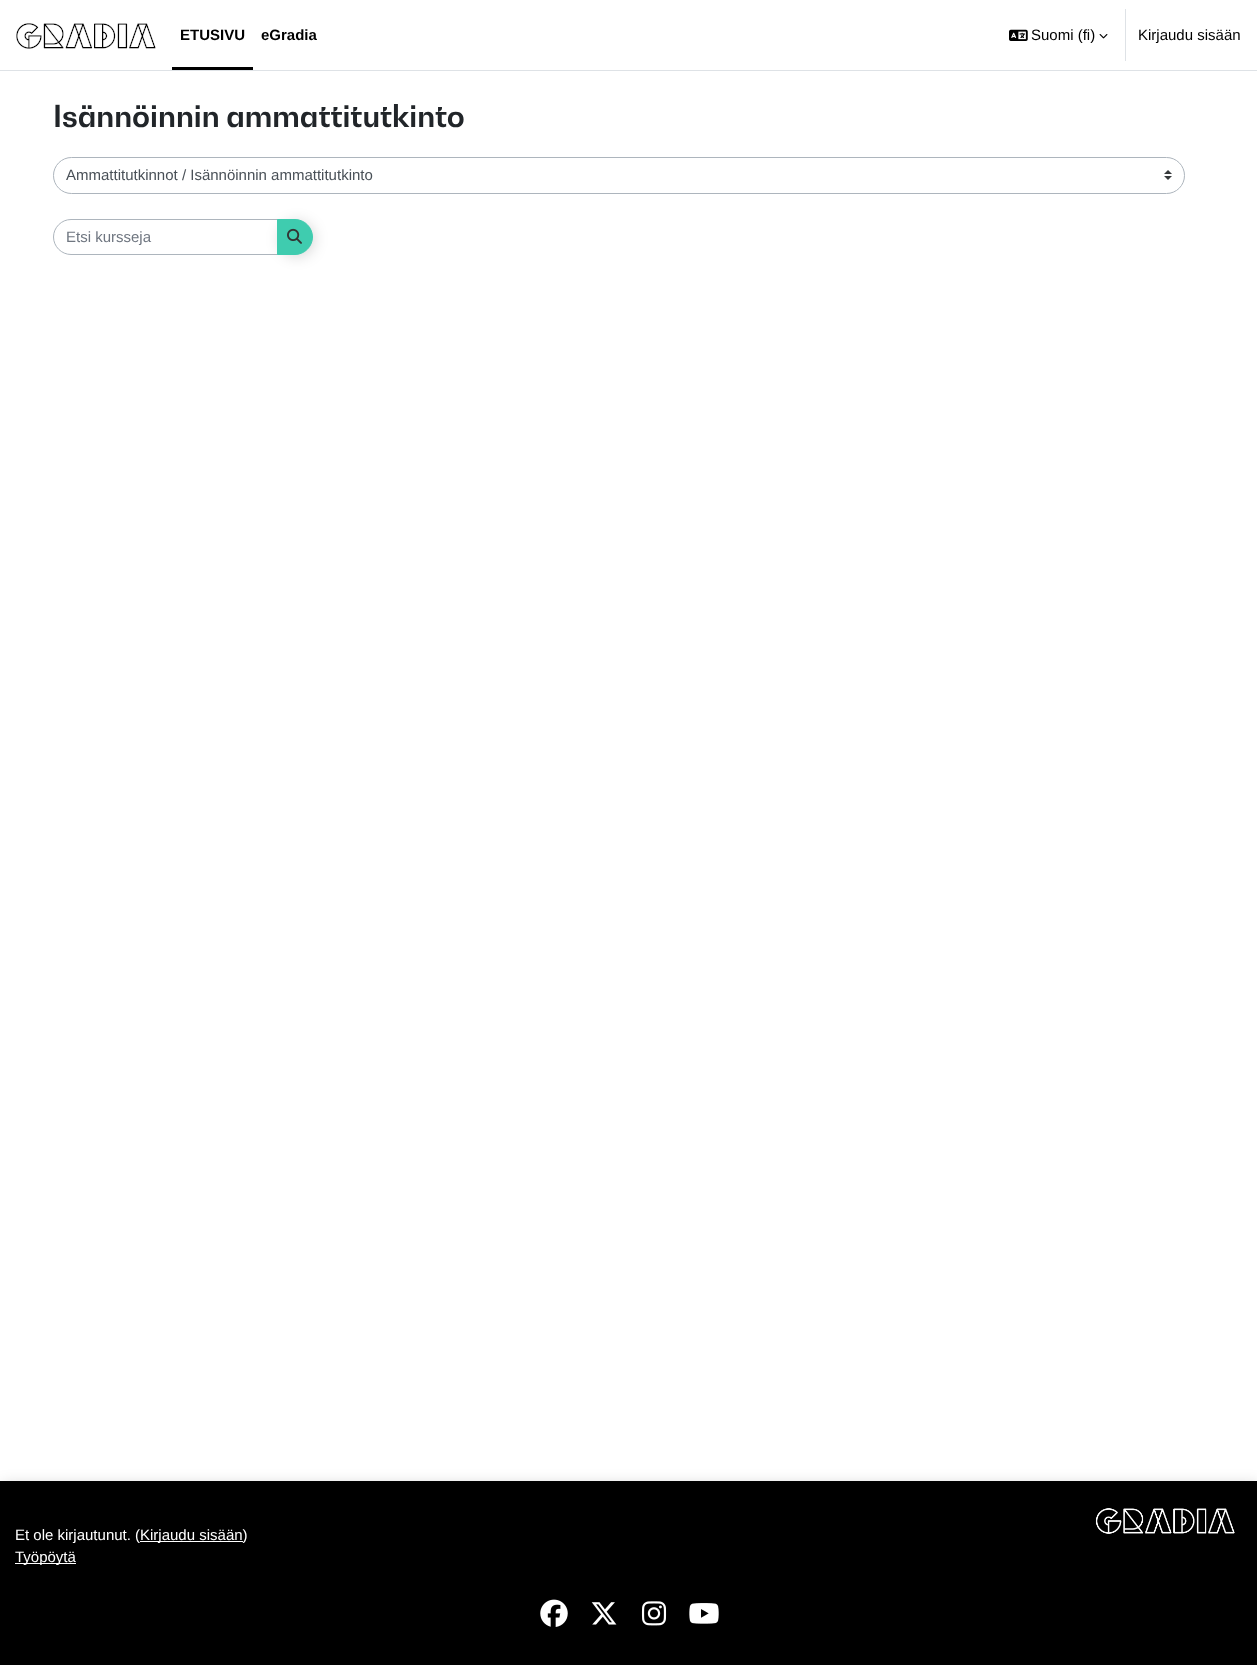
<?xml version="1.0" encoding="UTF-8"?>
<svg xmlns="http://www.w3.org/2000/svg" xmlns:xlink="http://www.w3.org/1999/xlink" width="1257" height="1665">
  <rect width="100%" height="100%" fill="#ffffff" />
  <rect y="70" width="1257" height="1" fill="#dee2e6" />
  <image x="16" y="23" width="140" height="26" xlink:href="image1.png" />
  <rect x="172" y="67" width="81" height="3" fill="#000000" />
  <image x="1009" y="29" width="19" height="12" xlink:href="image2.png" />
  <image x="1099" y="34" width="9" height="5" xlink:href="image3.png" />
  <rect x="1125" y="9" width="1" height="52" fill="#dee2e6" />
  <image x="1164" y="170" width="8" height="10" xlink:href="image4.png" />
  <rect x="53.5" y="157.5" width="1131" height="36" rx="18" fill="none" stroke="#adb5bd" />
  <path d="M 71 219.5 h 206.5 v 35 h -206.5 c -9.5 0 -17.5 -8 -17.5 -17.5 c 0 -9.5 8 -17.5 17.5 -17.5 z" fill="none" stroke="#adb5bd" />
  <rect x="279" y="221" width="36" height="36" rx="18" fill="#000000" fill-opacity="0.15" filter="blur(7px)" />
  <path d="M 277.5 219.5 h 17.5 c 9.5 0 17.5 8 17.5 17.5 c 0 9.5 -8 17.5 -17.5 17.5 h -17.5 z" fill="#3fccaf" stroke="#3fccaf" />
  <image x="287" y="228" width="15" height="16" xlink:href="image5.png" />
  <rect x="2" y="1483" width="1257" height="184" fill="#000000" fill-opacity="0.15" filter="blur(7px)" />
  <rect y="1481" width="1257" height="184" fill="#000000" />
  <image x="1095" y="1508" width="140" height="26" xlink:href="image6.png" />
  <rect x="140" y="1541" width="103" height="1" fill="#ffffff" />
  <rect x="15" y="1563" width="61" height="1" fill="#ffffff" />
  <image x="540" y="1599" width="28" height="28" xlink:href="image7.png" />
  <image x="591" y="1602" width="26" height="23" xlink:href="image8.png" />
  <image x="641" y="1601" width="26" height="25" xlink:href="image9.png" />
  <image x="689" y="1603" width="30" height="21" xlink:href="image10.png" />
  <text x="180" y="40" style="font-family: Liberation Sans; font-size: 15px; font-weight: bold; fill: #000000">ETUSIVU</text>
  <text x="261" y="40" style="font-family: Liberation Sans; font-size: 15px; font-weight: bold; fill: #000000">eGradia</text>
  <text x="1031" y="40" style="font-family: Liberation Sans; font-size: 15px; fill: #000000">Suomi (fi)</text>
  <text x="1138" y="40" style="font-family: Liberation Sans; font-size: 15px; fill: #000000">Kirjaudu sisään</text>
  <text x="53" y="127" style="font-family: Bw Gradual; font-size: 30px; font-weight: bold; fill: #212529">Isännöinnin ammattitutkinto</text>
  <text x="66" y="180" style="font-family: Liberation Sans; font-size: 15px; fill: #495057">Ammattitutkinnot / Isännöinnin ammattitutkinto</text>
  <text x="66" y="242" style="font-family: Liberation Sans; font-size: 15px; fill: #6f7680">Etsi kursseja</text>
  <text x="15" y="1540" style="font-family: Liberation Sans; font-size: 15px; fill: #ffffff">Et ole kirjautunut. (</text>
  <text x="140" y="1540" style="font-family: Liberation Sans; font-size: 15px; fill: #ffffff">Kirjaudu sisään)</text>
  <text x="15" y="1562" style="font-family: Liberation Sans; font-size: 15px; fill: #ffffff">Työpöytä</text>
</svg>
